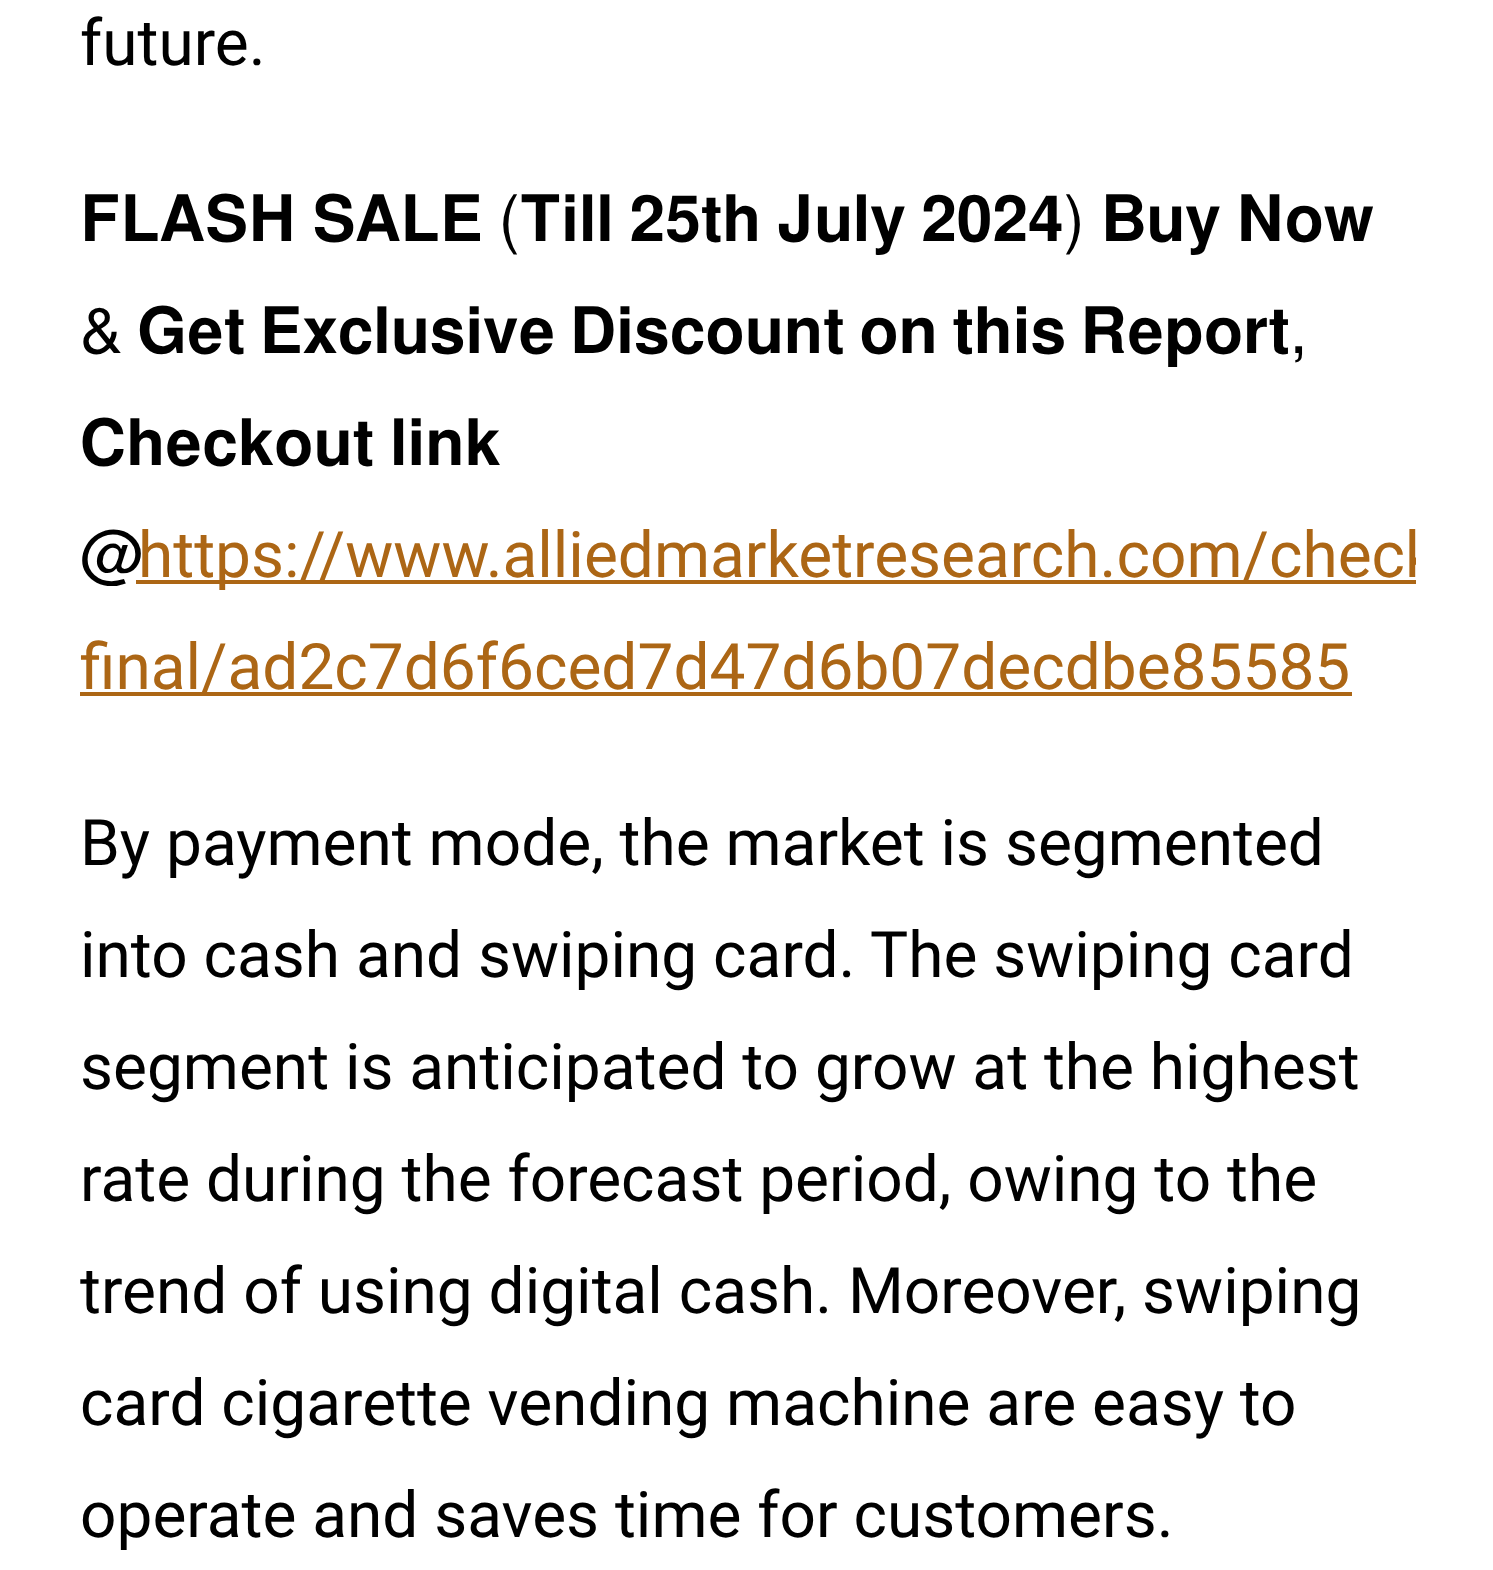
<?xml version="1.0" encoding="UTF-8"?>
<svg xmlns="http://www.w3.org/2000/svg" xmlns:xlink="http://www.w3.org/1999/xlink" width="1493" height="1570">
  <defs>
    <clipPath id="clip1"><rect x="80" width="1336" height="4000" /></clipPath>
  </defs>
  <rect width="100%" height="100%" fill="#ffffff" />
  <rect x="80" y="692" width="1272" height="4" fill="#ac6615" />
  <text x="80" y="65" style="font-family: Roboto; font-size: 64px; fill: #000000">future.</text>
  <text x="80" y="241" style="font-family: FreeSans; font-size: 64px; fill: #000000">𝐅𝐋𝐀𝐒𝐇 𝐒𝐀𝐋𝐄 (𝐓𝐢𝐥𝐥 𝟐𝟓𝐭𝐡 𝐉𝐮𝐥𝐲 𝟐𝟎𝟐𝟒) 𝐁𝐮𝐲 𝐍𝐨𝐰</text>
  <text x="80" y="353" word-spacing="-1.5" style="font-family: FreeSans; font-size: 64px; fill: #000000">&amp; 𝐆𝐞𝐭 𝐄𝐱𝐜𝐥𝐮𝐬𝐢𝐯𝐞 𝐃𝐢𝐬𝐜𝐨𝐮𝐧𝐭 𝐨𝐧 𝐭𝐡𝐢𝐬 𝐑𝐞𝐩𝐨𝐫𝐭,</text>
  <text x="80" y="465" style="font-family: FreeSans; font-size: 64px; fill: #000000">𝐂𝐡𝐞𝐜𝐤𝐨𝐮𝐭 𝐥𝐢𝐧𝐤</text>
  <text x="80" y="577" style="font-family: FreeSans; font-size: 64px; fill: #000000">@</text>
  <rect x="136" y="580" width="1280" height="4" fill="#ac6615" />
  <g clip-path="url(#clip1)">
    <text x="138" y="577" style="font-family: Roboto; font-size: 64px; fill: #ac6615">https://www.alliedmarketresearch.com/check</text>
  </g>
  <text x="80" y="689" style="font-family: Roboto; font-size: 64px; fill: #ac6615">final/ad2c7d6f6ced7d47d6b07decdbe85585</text>
  <text x="80" y="865" style="font-family: Roboto; font-size: 64px; fill: #000000">By payment mode, the market is segmented</text>
  <text x="80" y="977" style="font-family: Roboto; font-size: 64px; fill: #000000">into cash and swiping card. The swiping card</text>
  <text x="80" y="1089" style="font-family: Roboto; font-size: 64px; fill: #000000">segment is anticipated to grow at the highest</text>
  <text x="80" y="1201" style="font-family: Roboto; font-size: 64px; fill: #000000">rate during the forecast period, owing to the</text>
  <text x="80" y="1313" style="font-family: Roboto; font-size: 64px; fill: #000000">trend of using digital cash. Moreover, swiping</text>
  <text x="80" y="1425" style="font-family: Roboto; font-size: 64px; fill: #000000">card cigarette vending machine are easy to</text>
  <text x="80" y="1537" style="font-family: Roboto; font-size: 64px; fill: #000000">operate and saves time for customers.</text>
</svg>
